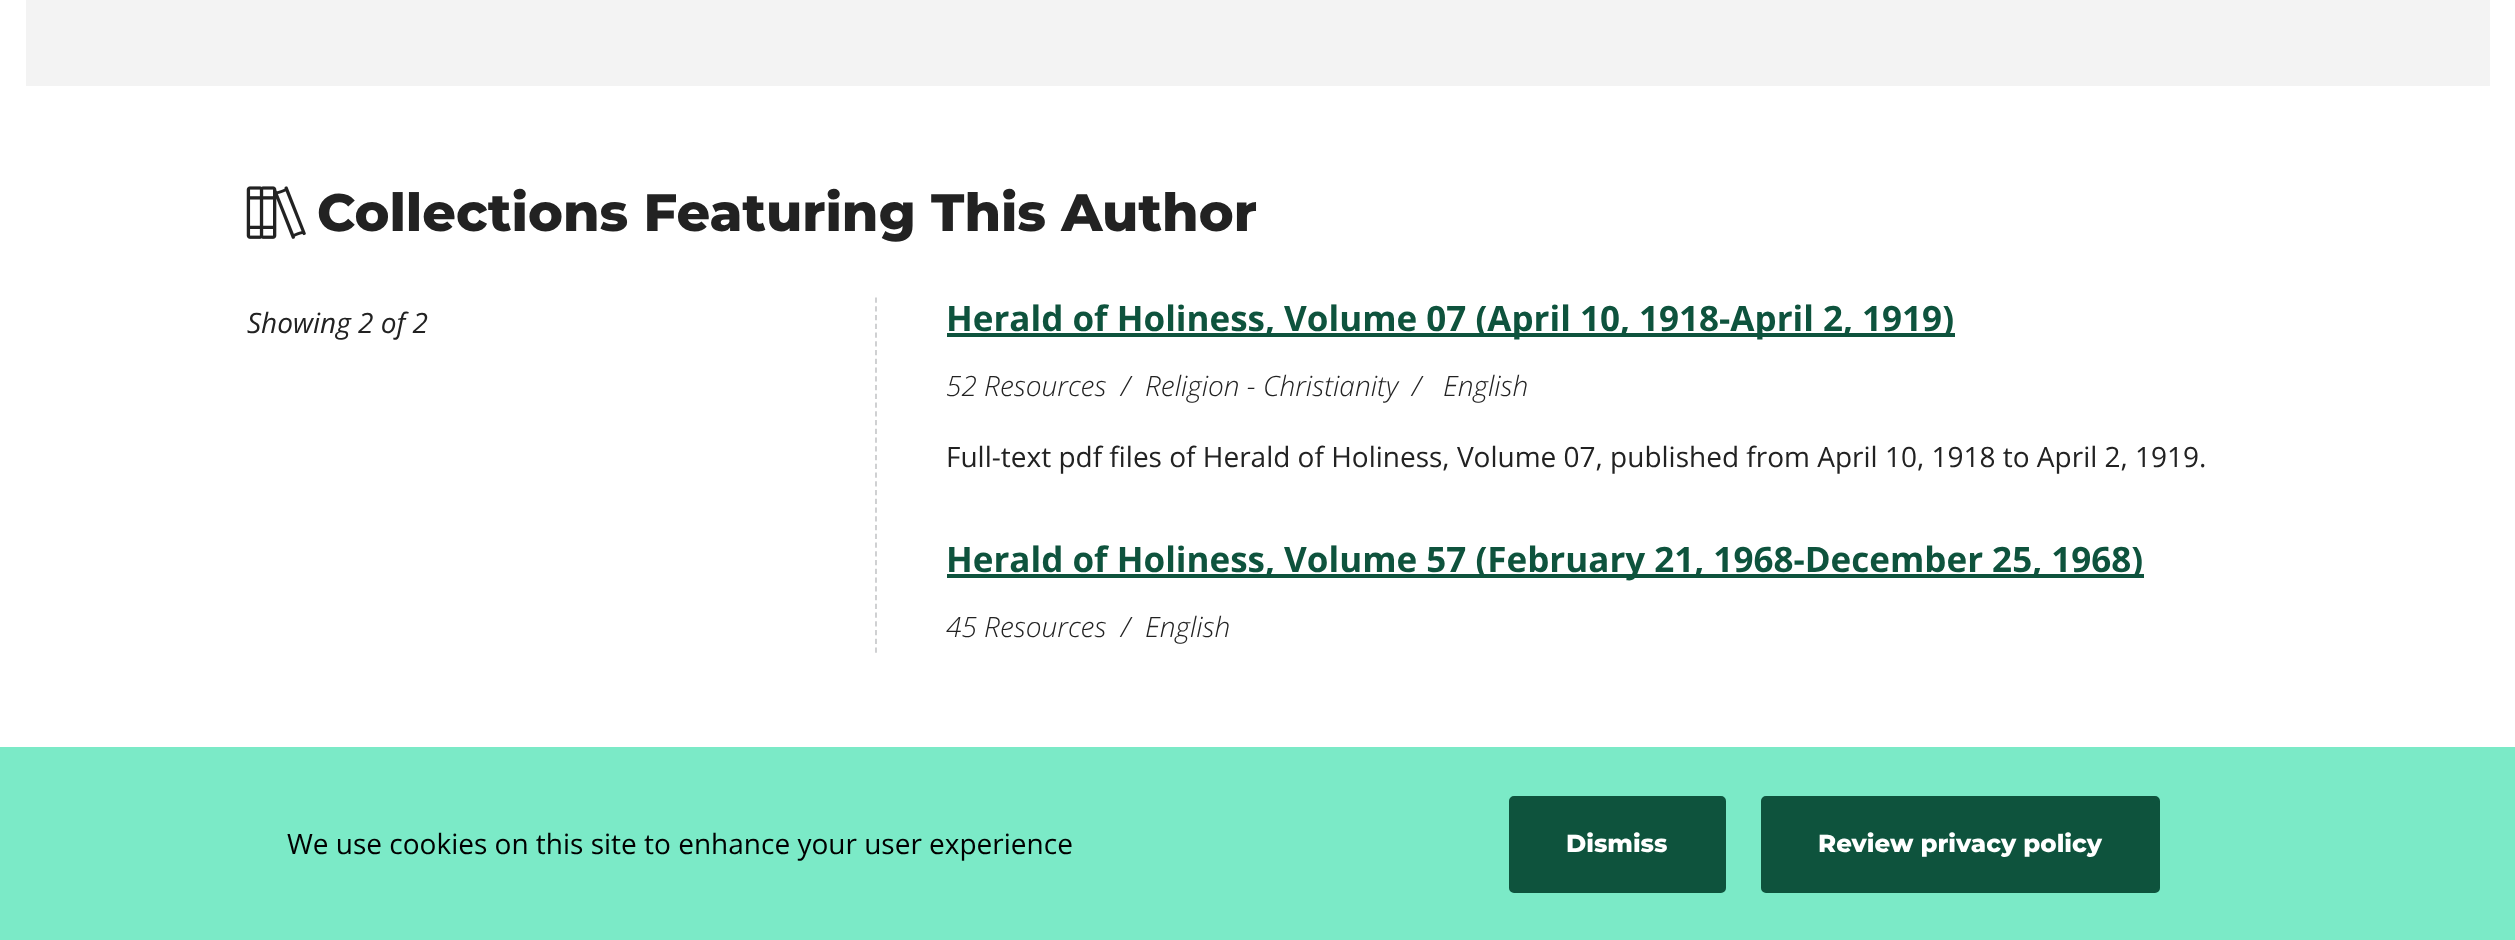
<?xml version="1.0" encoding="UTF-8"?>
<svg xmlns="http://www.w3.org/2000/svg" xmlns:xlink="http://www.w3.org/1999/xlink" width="2515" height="940">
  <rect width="100%" height="100%" fill="#ffffff" />
  <rect x="26" width="2464" height="86" fill="#f3f3f3" />
  <image x="246" y="186" width="60" height="53" xlink:href="image1.png" />
  <path d="M 876 297.5 v 355.5" fill="none" stroke="#cbccce" stroke-width="1.8" stroke-dasharray="5.25 3.5" />
  <rect x="947" y="333" width="1008" height="4" fill="#0e533d" />
  <rect x="947" y="574" width="1197" height="4" fill="#0e533d" />
  <rect y="747" width="2515" height="193" fill="#7beac7" />
  <rect x="1511.5" y="798.5" width="212" height="92" rx="2.5" fill="#0e533d" stroke="#0e533d" stroke-width="5" />
  <rect x="1763.5" y="798.5" width="394" height="92" rx="2.5" fill="#0e533d" stroke="#0e533d" stroke-width="5" />
  <text x="317" y="231" style="font-family: Montserrat; font-size: 52.5px; font-weight: 800; fill: #222222">Collections Featuring This Author</text>
  <text x="247" y="333" style="font-family: Open Sans; font-size: 28px; font-style: italic; fill: #222222">Showing 2 of 2</text>
  <text x="946" y="331" style="font-family: Open Sans; font-size: 35px; font-weight: bold; fill: #0e533d">Herald of Holiness, Volume 07 (April 10, 1918-April 2, 1919)</text>
  <text x="946" y="396" style="font-family: Open Sans; font-size: 28px; font-weight: 300; font-style: italic; fill: #222222">52 Resources</text>
  <text x="1121" y="396" style="font-family: Open Sans; font-size: 28px; font-weight: 300; font-style: italic; fill: #222222">/</text>
  <text x="1145" y="396" style="font-family: Open Sans; font-size: 28px; font-weight: 300; font-style: italic; fill: #222222">Religion - Christianity</text>
  <text x="1412" y="396" style="font-family: Open Sans; font-size: 28px; font-weight: 300; font-style: italic; fill: #222222">/</text>
  <text x="1443" y="396" style="font-family: Open Sans; font-size: 28px; font-weight: 300; font-style: italic; fill: #222222">English</text>
  <text x="946" y="467" style="font-family: Open Sans; font-size: 28px; fill: #222222">Full-text pdf files of Herald of Holiness, Volume 07, published from April 10, 1918 to April 2, 1919.</text>
  <text x="946" y="572" style="font-family: Open Sans; font-size: 35px; font-weight: bold; fill: #0e533d">Herald of Holiness, Volume 57 (February 21, 1968-December 25, 1968)</text>
  <text x="946" y="637" style="font-family: Open Sans; font-size: 28px; font-weight: 300; font-style: italic; fill: #222222">45 Resources</text>
  <text x="1121" y="637" style="font-family: Open Sans; font-size: 28px; font-weight: 300; font-style: italic; fill: #222222">/</text>
  <text x="1145" y="637" style="font-family: Open Sans; font-size: 28px; font-weight: 300; font-style: italic; fill: #222222">English</text>
  <text x="287" y="854" style="font-family: Open Sans; font-size: 28px; fill: #000000">We use cookies on this site to enhance your user experience</text>
  <text x="1566" y="852" style="font-family: Montserrat; font-size: 24.5px; font-weight: 800; fill: #ffffff">Dismiss</text>
  <text x="1818" y="852" style="font-family: Montserrat; font-size: 24.5px; font-weight: 800; fill: #ffffff">Review privacy policy</text>
</svg>
